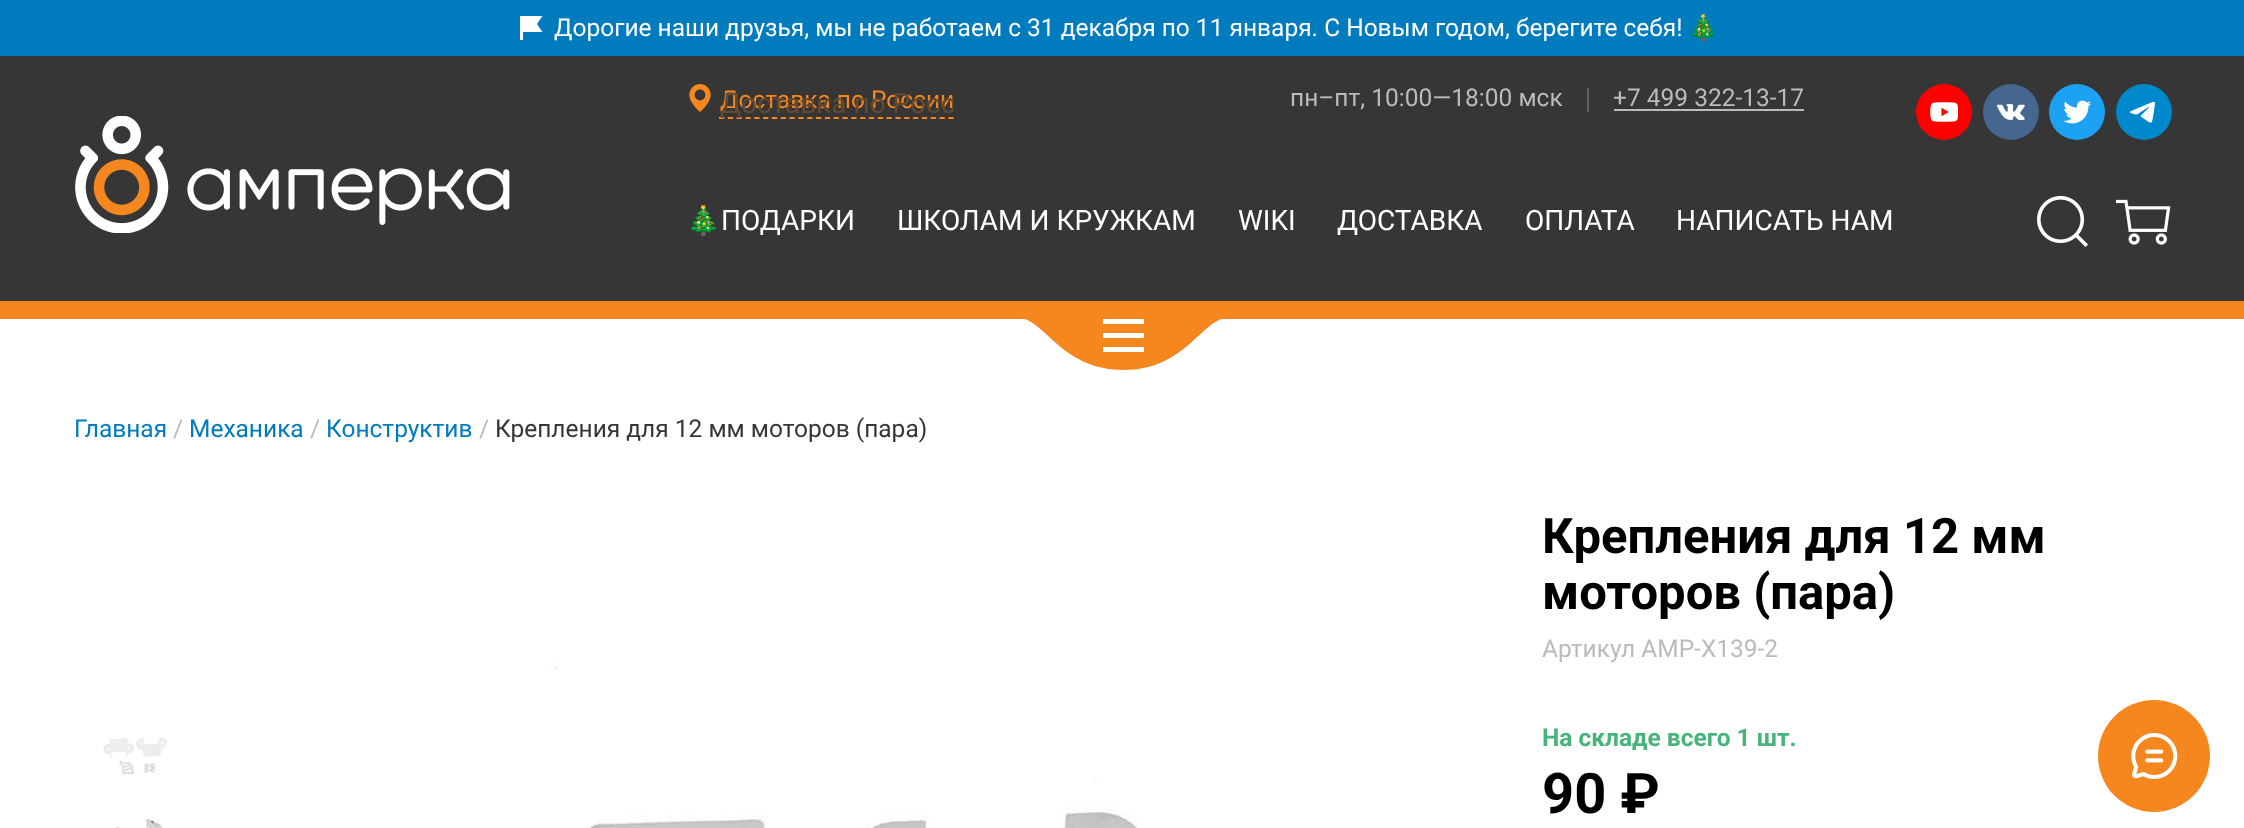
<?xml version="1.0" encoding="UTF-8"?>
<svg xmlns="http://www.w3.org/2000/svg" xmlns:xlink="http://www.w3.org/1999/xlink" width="2244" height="828">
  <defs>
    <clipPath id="clip1"><rect x="1019" y="319" width="210" height="52" /></clipPath>
    <clipPath id="clip2"><rect x="1103" y="319" width="42" height="34" /></clipPath>
    <clipPath id="clip3"><rect x="719" y="86" width="235" height="37" /></clipPath>
  </defs>
  <rect width="100%" height="100%" fill="#ffffff" />
  <rect width="2244" height="56" fill="#007bbd" />
  <path d="M 537 24 l 5.5 -8 h -22.5 v 24 h 3 v -8 h 19.5 z" fill="#ffffff" />
  <rect y="56" width="2244" height="245" fill="#363636" />
  <image x="689" y="84" width="22" height="28" xlink:href="image1.png" />
  <path d="M 719 118 h 235" fill="none" stroke="#f6871f" stroke-width="1.8" stroke-dasharray="5.25 3.57" />
  <rect x="1587" y="88" width="2" height="24" fill="#616161" />
  <rect x="1614" y="109" width="190" height="2" fill="#bbbbbb" />
  <image x="75" y="116" width="435" height="117" xlink:href="image2.png" />
  <circle cx="1944" cy="112" r="28" fill="#ff0000" />
  <image x="1930" y="102" width="28" height="20" xlink:href="image3.png" />
  <circle cx="2011" cy="112" r="28" fill="#45668e" />
  <image x="1997" y="104" width="28" height="16" xlink:href="image4.png" />
  <circle cx="2077" cy="112" r="28" fill="#1da1f2" />
  <image x="2063" y="100" width="28" height="24" xlink:href="image5.png" />
  <circle cx="2144" cy="112" r="28" fill="#0088cc" />
  <image x="2130" y="101" width="25" height="22" xlink:href="image6.png" />
  <rect y="301" width="2244" height="18" fill="#f6871f" />
  <g clip-path="url(#clip1)">
    <path d="M 1018 318 c 27 0 42 52 106 52 c 62 0 78 -52 104 -52 z" fill="#f6871f" />
  </g>
  <g clip-path="url(#clip2)">
    <path d="M 1144 319 v 5 h -42 v -5 z m -42 19 h 42 v -5 h -42 z m 0 14 h 42 v -5 h -42 z" fill="#ffffff" />
  </g>
  <image x="2037" y="196" width="51" height="51" xlink:href="image7.png" />
  <image x="2116" y="199" width="55" height="46" xlink:href="image8.png" />
  <image x="103" y="737" width="64" height="38" xlink:href="image9.png" />
  <image x="113" y="818" width="50" height="10" xlink:href="image10.png" />
  <image x="551" y="663" width="587" height="165" xlink:href="image11.png" />
  <circle cx="2154" cy="756" r="56" fill="#f6871f" />
  <image x="2131" y="733" width="47" height="46" xlink:href="image12.png" />
  <text x="554" y="36" style="font-family: Roboto; font-size: 24.5px; fill: #ffffff">Дорогие наши друзья, мы не работаем с 31 декабря по 11 января. С Новым годом, берегите себя!</text>
  <text x="1688" y="36" style="font-family: Noto Color Emoji; font-size: 24.5px; fill: #ffffff">🎄</text>
  <text x="720" y="108" style="font-family: Roboto; font-size: 24.5px; fill: #f6871f">Доставка по России</text>
  <g clip-path="url(#clip3)">
    <text x="720" y="113" style="font-family: Roboto; font-size: 28px; fill: #624931">Доставка по Росс</text>
  </g>
  <text x="1290" y="106" style="font-family: Roboto; font-size: 24.5px; fill: #bbbbbb">пн–пт, 10:00—18:00 мск</text>
  <text x="1613" y="106" style="font-family: Roboto; font-size: 24.5px; fill: #bbbbbb">+7 499 322-13-17</text>
  <text x="686" y="230" style="font-family: Noto Color Emoji; font-size: 28px; fill: #ffffff">🎄</text>
  <text x="721" y="230" style="font-family: Roboto; font-size: 28px; fill: #ffffff">ПОДАРКИ</text>
  <text x="897" y="230" style="font-family: Roboto; font-size: 28px; fill: #ffffff">ШКОЛАМ И КРУЖКАМ</text>
  <text x="1238" y="230" style="font-family: Roboto; font-size: 28px; fill: #ffffff">WIKI</text>
  <text x="1337" y="230" style="font-family: Roboto; font-size: 28px; fill: #ffffff">ДОСТАВКА</text>
  <text x="1525" y="230" style="font-family: Roboto; font-size: 28px; fill: #ffffff">ОПЛАТА</text>
  <text x="1676" y="230" style="font-family: Roboto; font-size: 28px; fill: #ffffff">НАПИСАТЬ НАМ</text>
  <text x="74" y="437" style="font-family: Roboto; font-size: 24.5px; fill: #007bbd">Главная</text>
  <text x="173" y="437" style="font-family: Roboto; font-size: 24.5px; fill: #bbbbbb">/</text>
  <text x="189" y="437" style="font-family: Roboto; font-size: 24.5px; fill: #007bbd">Механика</text>
  <text x="310" y="437" style="font-family: Roboto; font-size: 24.5px; fill: #bbbbbb">/</text>
  <text x="326" y="437" style="font-family: Roboto; font-size: 24.5px; fill: #007bbd">Конструктив</text>
  <text x="479" y="437" style="font-family: Roboto; font-size: 24.5px; fill: #bbbbbb">/</text>
  <text x="495" y="437" style="font-family: Roboto; font-size: 24.5px; fill: #363636">Крепления для 12 мм моторов (пара)</text>
  <text x="1542" y="553" style="font-family: Roboto; font-size: 49px; font-weight: bold; fill: #000000">Крепления для 12 мм</text>
  <text x="1542" y="609" style="font-family: Roboto; font-size: 49px; font-weight: bold; fill: #000000">моторов (пара)</text>
  <text x="1542" y="657" style="font-family: Roboto; font-size: 24.5px; fill: #bbbbbb">Артикул AMP-X139-2</text>
  <text x="1542" y="746" style="font-family: Roboto; font-size: 24.5px; font-weight: bold; fill: #47b47b">На складе всего 1 шт.</text>
  <text x="1542" y="813" style="font-family: Roboto; font-size: 56px; font-weight: bold; fill: #000000">90 ₽</text>
</svg>
